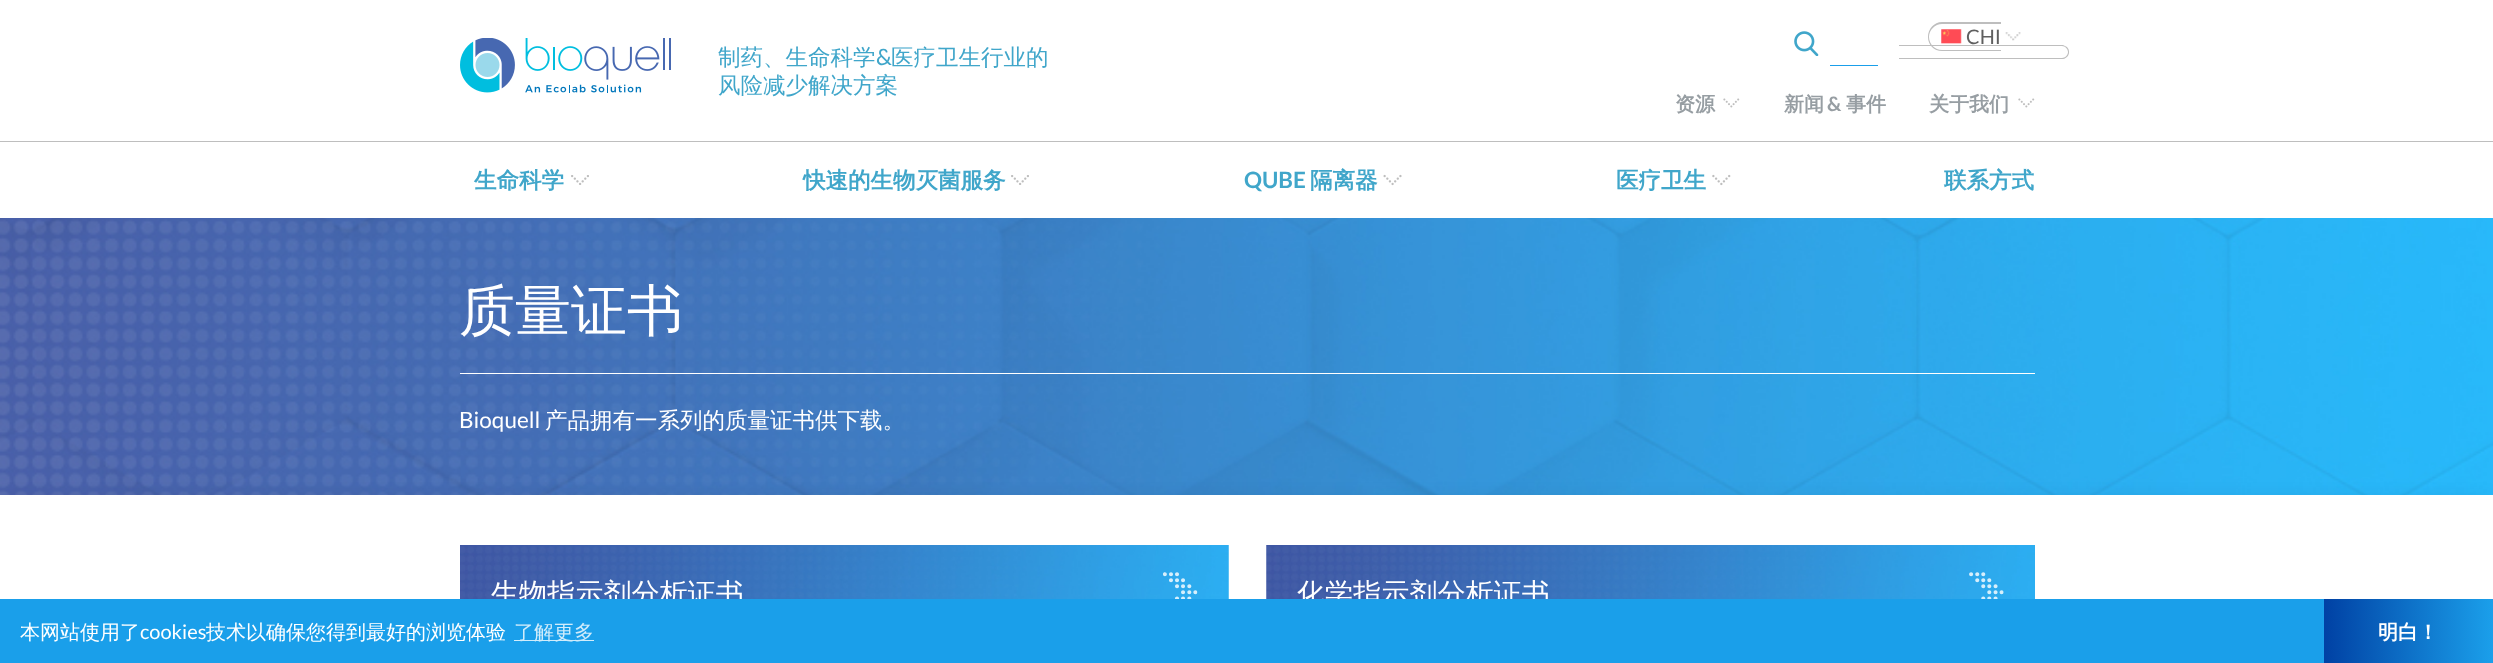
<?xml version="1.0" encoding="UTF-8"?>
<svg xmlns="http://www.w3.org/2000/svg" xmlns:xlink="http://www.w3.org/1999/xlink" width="2493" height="663">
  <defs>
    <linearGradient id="g1" gradientUnits="userSpaceOnUse" x1="2324" y1="631" x2="2154" y2="631"><stop offset="0" stop-color="#1ba0eb" /><stop offset="1" stop-color="#0041a4" /></linearGradient>
    <linearGradient id="g2" gradientUnits="userSpaceOnUse" x1="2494" y1="631" x2="2324" y2="631"><stop offset="0" stop-color="#1ba0eb" /><stop offset="1" stop-color="#0041a4" /></linearGradient>
  </defs>
  <rect width="100%" height="100%" fill="#ffffff" />
  <image x="460" y="38" width="211" height="55" xlink:href="image1.png" />
  <image x="1794" y="31" width="25" height="25" xlink:href="image2.png" />
  <rect x="1830" y="65" width="48" height="1" fill="#1a9fea" />
  <image x="1941" y="29" width="80" height="16" xlink:href="image3.png" />
  <path d="M 1942 22 h 59 v 29 h -59 c -8 0 -14 -6 -14 -14 c 0 -8 6 -15 14 -15 z m 0 2 h 59 v 26 h -59 c -7 0 -13 -6 -13 -13 c 0 -7 6 -13 13 -13 z" fill="#bebebe" fill-rule="evenodd" />
  <path d="M 1899 45 h 164 l 4 2 c 4 4 2 11 -4 12 h -164 z m 0 1 h 163 c 3 0 6 3 6 6 c 0 3 -3 6 -6 6 h -163 z" fill="#bebebe" fill-rule="evenodd" />
  <image x="1723" y="98" width="17" height="10" xlink:href="image4.png" />
  <image x="2018" y="98" width="17" height="10" xlink:href="image4.png" />
  <rect y="141" width="2493" height="1" fill="#bebebe" />
  <image x="571" y="175" width="18" height="10" xlink:href="image5.png" />
  <image x="1011" y="175" width="18" height="10" xlink:href="image5.png" />
  <image x="1383" y="174" width="19" height="12" xlink:href="image6.png" />
  <image x="1712" y="174" width="19" height="12" xlink:href="image7.png" />
  <image x="0" y="218" width="2493" height="277" xlink:href="image8.png" />
  <rect x="460" y="373" width="1575" height="1" fill="#ffffff" />
  <rect y="495" width="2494" height="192" fill="#000000" fill-opacity="0.05" filter="blur(8px)" />
  <rect y="495" width="2493" height="104" fill="#ffffff" />
  <image x="460" y="545" width="769" height="54" xlink:href="image9.png" />
  <image x="1266" y="545" width="769" height="54" xlink:href="image10.png" />
  <rect x="2321" y="599" width="3" height="64" fill="url(#g1)" />
  <rect x="2324" y="599" width="169" height="64" fill="url(#g2)" />
  <text x="718" y="65" style="font-family: WenQuanYi Zen Hei; font-size: 22.5px; font-weight: 500; fill: #40a6ca">制药、生命科学</text>
  <text x="876" y="65" style="font-family: Lato; font-size: 22.5px; fill: #40a6ca">&amp;</text>
  <text x="891" y="65" style="font-family: WenQuanYi Zen Hei; font-size: 22.5px; font-weight: 500; fill: #40a6ca">医疗卫生行业的</text>
  <text x="718" y="93" style="font-family: WenQuanYi Zen Hei; font-size: 22.5px; font-weight: 500; fill: #40a6ca">风险减少解决方案</text>
  <text x="1966" y="44" style="font-family: Lato; font-size: 20px; fill: #5f5f5f">CHI</text>
  <text x="1675" y="111" style="font-family: WenQuanYi Zen Hei; font-size: 20px; font-weight: bold; fill: #979ea3">资源</text>
  <text x="1784" y="111" style="font-family: WenQuanYi Zen Hei; font-size: 20px; font-weight: bold; fill: #979ea3">新闻</text>
  <text x="1827" y="111" style="font-family: Lato; font-size: 20px; font-weight: bold; fill: #979ea3">&amp;</text>
  <text x="1846" y="111" style="font-family: WenQuanYi Zen Hei; font-size: 20px; font-weight: bold; fill: #979ea3">事件</text>
  <text x="1929" y="111" style="font-family: WenQuanYi Zen Hei; font-size: 20px; font-weight: bold; fill: #979ea3">关于我们</text>
  <text x="474" y="188" style="font-family: WenQuanYi Zen Hei; font-size: 22.5px; font-weight: bold; fill: #40a6ca">生命科学</text>
  <text x="803" y="188" style="font-family: WenQuanYi Zen Hei; font-size: 22.5px; font-weight: bold; fill: #40a6ca">快速的生物灭菌服务</text>
  <text x="1244" y="188" style="font-family: Lato; font-size: 22.5px; font-weight: bold; fill: #40a6ca">QUBE</text>
  <text x="1310" y="188" style="font-family: WenQuanYi Zen Hei; font-size: 22.5px; font-weight: bold; fill: #40a6ca">隔离器</text>
  <text x="1616" y="188" style="font-family: WenQuanYi Zen Hei; font-size: 22.5px; font-weight: bold; fill: #40a6ca">医疗卫生</text>
  <text x="1944" y="188" style="font-family: WenQuanYi Zen Hei; font-size: 22.5px; font-weight: bold; fill: #40a6ca">联系方式</text>
  <text x="459" y="330" style="font-family: WenQuanYi Zen Hei; font-size: 56px; font-weight: 500; fill: #ffffff">质量证书</text>
  <text x="459" y="428" style="font-family: Lato; font-size: 22.5px; fill: #ffffff">Bioquell</text>
  <text x="545" y="428" style="font-family: WenQuanYi Zen Hei; font-size: 22.5px; font-weight: 500; fill: #ffffff">产品拥有一系列的质量证书供下载。</text>
  <text x="491" y="603" style="font-family: WenQuanYi Zen Hei; font-size: 28.1px; font-weight: 500; fill: #ffffff">生物指示剂分析证书</text>
  <text x="1297" y="603" style="font-family: WenQuanYi Zen Hei; font-size: 28.1px; font-weight: 500; fill: #ffffff">化学指示剂分析证书</text>
  <rect y="599" width="2321" height="64" fill="#1a9fea" />
  <text x="20" y="639" style="font-family: WenQuanYi Zen Hei; font-size: 20px; font-weight: 500; fill: #ffffff">本网站使用了</text>
  <text x="140" y="639" style="font-family: Lato; font-size: 20px; fill: #ffffff">cookies</text>
  <text x="206" y="639" style="font-family: WenQuanYi Zen Hei; font-size: 20px; font-weight: 500; fill: #ffffff">技术以确保您得到最好的浏览体验</text>
  <rect x="514" y="640" width="80" height="1" fill="#d1ecfb" />
  <text x="514" y="639" style="font-family: WenQuanYi Zen Hei; font-size: 20px; font-weight: 500; fill: #d1ecfb">了解更多</text>
  <text x="2378" y="639" style="font-family: WenQuanYi Zen Hei; font-size: 20px; font-weight: bold; fill: #ffffff">明白！</text>
</svg>
